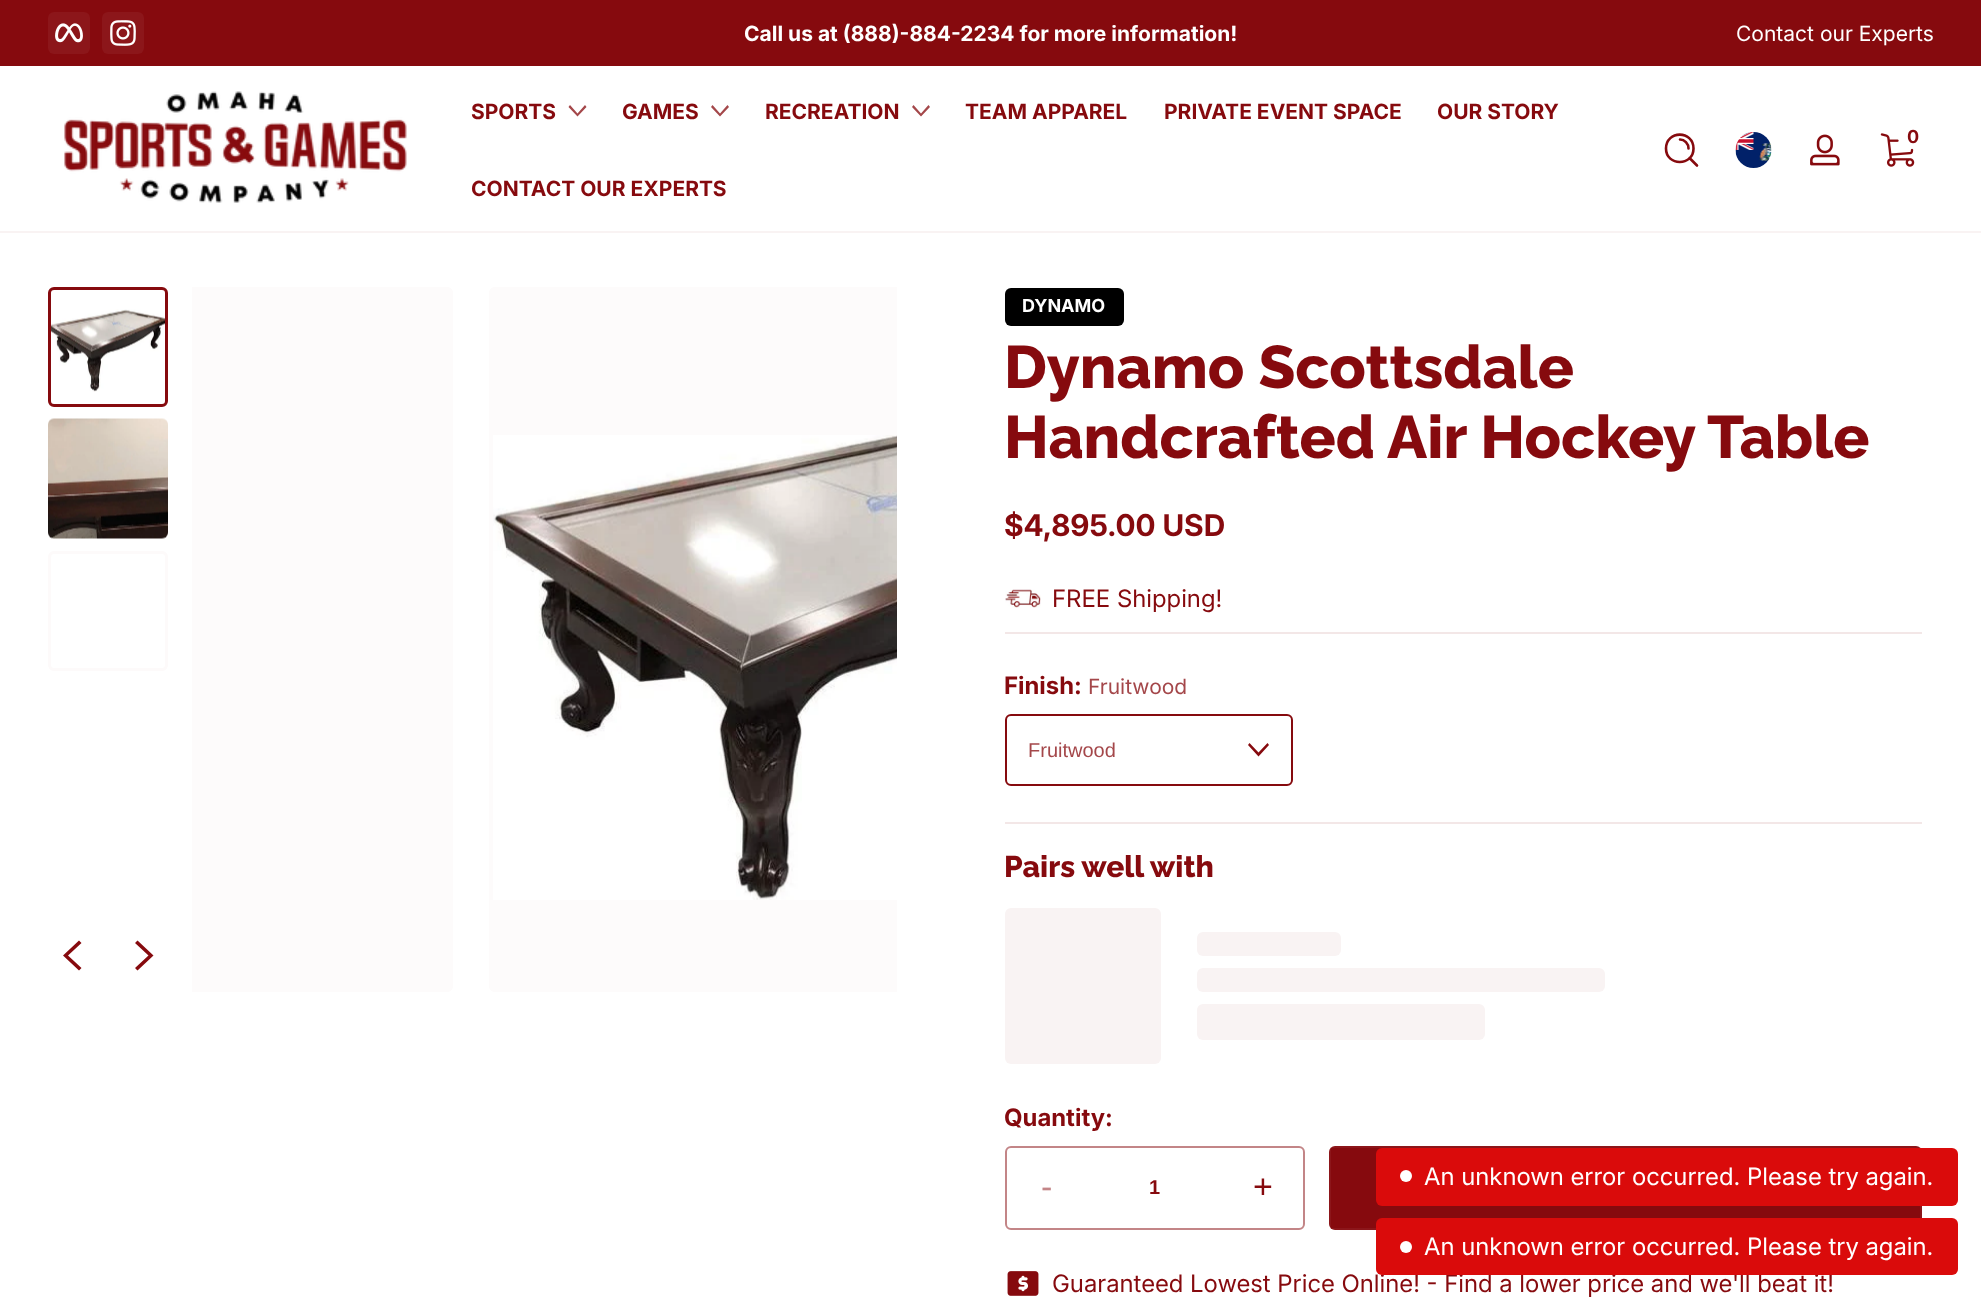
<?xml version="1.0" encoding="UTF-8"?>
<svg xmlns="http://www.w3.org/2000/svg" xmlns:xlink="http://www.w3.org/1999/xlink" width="1981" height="1299">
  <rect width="100%" height="100%" fill="#ffffff" />
  <rect width="1981" height="66" fill="#860a0e" />
  <rect x="48" y="12" width="42" height="42" rx="6" fill="#8c161a" />
  <image x="55" y="23" width="28" height="20" xlink:href="image1.png" />
  <rect x="102" y="12" width="42" height="42" rx="6" fill="#8c161a" />
  <image x="110" y="20" width="26" height="26" xlink:href="image2.png" />
  <image x="64" y="91" width="343" height="112" xlink:href="image3.png" />
  <path d="M 577.5 113.5 l 7.5 -8.5 l 1.5 2 l -9 9.5 l -9 -9.5 l 1.5 -2 z" fill="#a4474a" />
  <path d="M 720 113.5 l 7.5 -8.5 l 1.5 2 l -9 9.5 l -9 -9.5 l 1.5 -2 z" fill="#a4474a" />
  <path d="M 921 113.5 l 7.5 -8.5 l 1.5 2 l -9 9.5 l -9 -9.5 l 1.5 -2 z" fill="#a4474a" />
  <path d="M 1680 139.5 c 4.5 0 8.5 4 8.5 9 m 1 9.5 l 7.5 7.5 m -3.5 -17 c 0 18 -27.5 18 -27.5 0 c 0 -18.5 27.5 -18.5 27.5 0 z" fill="none" stroke="#860a0e" stroke-width="2.6" stroke-linecap="round" stroke-linejoin="round" />
  <image x="1735" y="132" width="37" height="36" xlink:href="image4.png" />
  <image x="1810" y="134" width="30" height="32" xlink:href="image5.png" />
  <image x="1880" y="133" width="35" height="34" xlink:href="image6.png" />
  <rect y="231" width="1981" height="2" fill="#f9f3f3" />
  <image x="51" y="309" width="114" height="83" xlink:href="image7.png" />
  <rect x="49.5" y="288.5" width="117" height="117" rx="4.5" fill="none" stroke="#860a0e" stroke-width="3" />
  <image x="48" y="418" width="120" height="121" xlink:href="image8.png" />
  <rect x="49.5" y="552.5" width="117" height="117" rx="4.5" fill="none" stroke="#fdfafa" stroke-width="3" />
  <path d="M 68 955.5 l 13.5 -12.5 l -2.5 -2.5 l -16 15 l 16 15 l 2.5 -2.5 z" fill="#860a0e" />
  <path d="M 148.5 955.5 l -13.5 -12.5 l 2.5 -2.5 l 16 15 l -16 15 l -2.5 -2.5 z" fill="#860a0e" />
  <path d="M 192 287 h 255 c 3.5 0 6 2.5 6 6 v 693 c 0 3.5 -2.5 6 -6 6 h -255 z" fill="#fdfbfb" />
  <path d="M 495 287 h 402 v 705 h -402 c -3.5 0 -6 -2.5 -6 -6 v -693 c 0 -3.5 2.5 -6 6 -6 z" fill="#fdfbfb" />
  <image x="493" y="435" width="404" height="465" xlink:href="image9.png" />
  <rect x="1005" y="288" width="119" height="38" rx="6" fill="#000000" />
  <image x="1005" y="589" width="36" height="19" xlink:href="image10.png" />
  <rect x="1005" y="632" width="917" height="2" fill="#f3e7e7" />
  <path d="M 1258.5 752.5 l 9 -9.5 l 1.5 2 l -10.5 11.5 l -10.5 -11.5 l 1.5 -2 z" fill="#860a0e" />
  <rect x="1006" y="715" width="286" height="70" rx="5" fill="none" stroke="#860a0e" stroke-width="2" />
  <rect x="1005" y="822" width="917" height="2" fill="#f3e7e7" />
  <rect x="1005" y="908" width="156" height="156" rx="6" fill="#f9f3f3" />
  <rect x="1197" y="932" width="144" height="24" rx="6" fill="#f9f3f3" />
  <rect x="1197" y="968" width="408" height="24" rx="6" fill="#f9f3f3" />
  <rect x="1197" y="1004" width="288" height="36" rx="6" fill="#f9f3f3" />
  <rect x="1006" y="1147" width="298" height="82" rx="5" fill="none" stroke="#c38587" stroke-width="2" />
  <rect x="1329" y="1146" width="593" height="84" rx="6" fill="#860a0e" />
  <rect x="1330" y="1147" width="591" height="82" fill="none" stroke="#ffffff" stroke-opacity="0.05" stroke-width="2" />
  <image x="1007" y="1271" width="32" height="25" xlink:href="image11.png" />
  <rect x="1376" y="1148" width="582" height="58" rx="6" fill="#da0b0b" />
  <circle cx="1406" cy="1176" r="6" fill="#ffffff" />
  <text x="744" y="41" style="font-family: Inter; font-size: 21px; font-weight: bold; fill: #ffffff">Call us at (888)-884-2234 for more information!</text>
  <text x="1736" y="41" style="font-family: 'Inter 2'; font-size: 21px; fill: #ffffff">Contact our Experts</text>
  <text x="471" y="119" style="font-family: Inter; font-size: 21px; font-weight: bold; fill: #860a0e">SPORTS</text>
  <text x="622" y="119" style="font-family: Inter; font-size: 21px; font-weight: bold; fill: #860a0e">GAMES</text>
  <text x="765" y="119" style="font-family: Inter; font-size: 21px; font-weight: bold; fill: #860a0e">RECREATION</text>
  <text x="965" y="119" style="font-family: Inter; font-size: 21px; font-weight: bold; fill: #860a0e">TEAM APPAREL</text>
  <text x="1164" y="119" style="font-family: Inter; font-size: 21px; font-weight: bold; fill: #860a0e">PRIVATE EVENT SPACE</text>
  <text x="1437" y="119" style="font-family: Inter; font-size: 21px; font-weight: bold; fill: #860a0e">OUR STORY</text>
  <text x="471" y="196" style="font-family: Inter; font-size: 21px; font-weight: bold; fill: #860a0e">CONTACT OUR EXPERTS</text>
  <text x="1907" y="143" style="font-family: Inter; font-size: 18px; font-weight: bold; fill: #860a0e">0</text>
  <text x="1022" y="312" style="font-family: Inter; font-size: 18px; font-weight: bold; fill: #ffffff">DYNAMO</text>
  <text x="1004" y="388" style="font-family: Raleway; font-size: 60px; font-weight: 800; fill: #860a0e">Dynamo Scottsdale</text>
  <text x="1004" y="458" style="font-family: Raleway; font-size: 60px; font-weight: 800; fill: #860a0e">Handcrafted Air Hockey Table</text>
  <text x="1004" y="536" style="font-family: 'Inter 2'; font-size: 30px; font-weight: bold; fill: #860a0e">$4,895.00 USD</text>
  <text x="1052" y="607" style="font-family: Inter; font-size: 24px; fill: #860a0e">FREE Shipping!</text>
  <text x="1004" y="694" style="font-family: 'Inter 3'; font-size: 24px; font-weight: bold; fill: #860a0e">Finish:</text>
  <text x="1088" y="694" style="font-family: 'Inter 2'; font-size: 21px; fill: #a4474a">Fruitwood</text>
  <text x="1028" y="757" style="font-family: Liberation Sans; font-size: 20px; fill: #a4474a">Fruitwood</text>
  <text x="1004" y="877" style="font-family: Raleway; font-size: 30px; font-weight: 800; fill: #860a0e">Pairs well with</text>
  <text x="1004" y="1126" style="font-family: 'Inter 3'; font-size: 24px; font-weight: bold; fill: #860a0e">Quantity:</text>
  <text x="1041" y="1198" style="font-family: Liberation Sans; font-size: 34px; fill: #c38587">-</text>
  <text x="1149" y="1194" style="font-family: Liberation Sans; font-size: 20px; font-weight: bold; fill: #860a0e">1</text>
  <text x="1253" y="1198" style="font-family: Liberation Sans; font-size: 34px; fill: #860a0e">+</text>
  <text x="1052" y="1292" style="font-family: Inter; font-size: 24px; fill: #860a0e">Guaranteed Lowest Price Online! - Find a lower price and we'll beat it!</text>
  <text x="1424" y="1185" style="font-family: Inter; font-size: 24px; fill: #ffffff">An unknown error occurred. Please try again.</text>
  <rect x="1376" y="1218" width="582" height="57" rx="6" fill="#da0b0b" />
  <circle cx="1406" cy="1247" r="6" fill="#ffffff" />
  <text x="1424" y="1255" style="font-family: Inter; font-size: 24px; fill: #ffffff">An unknown error occurred. Please try again.</text>
</svg>
